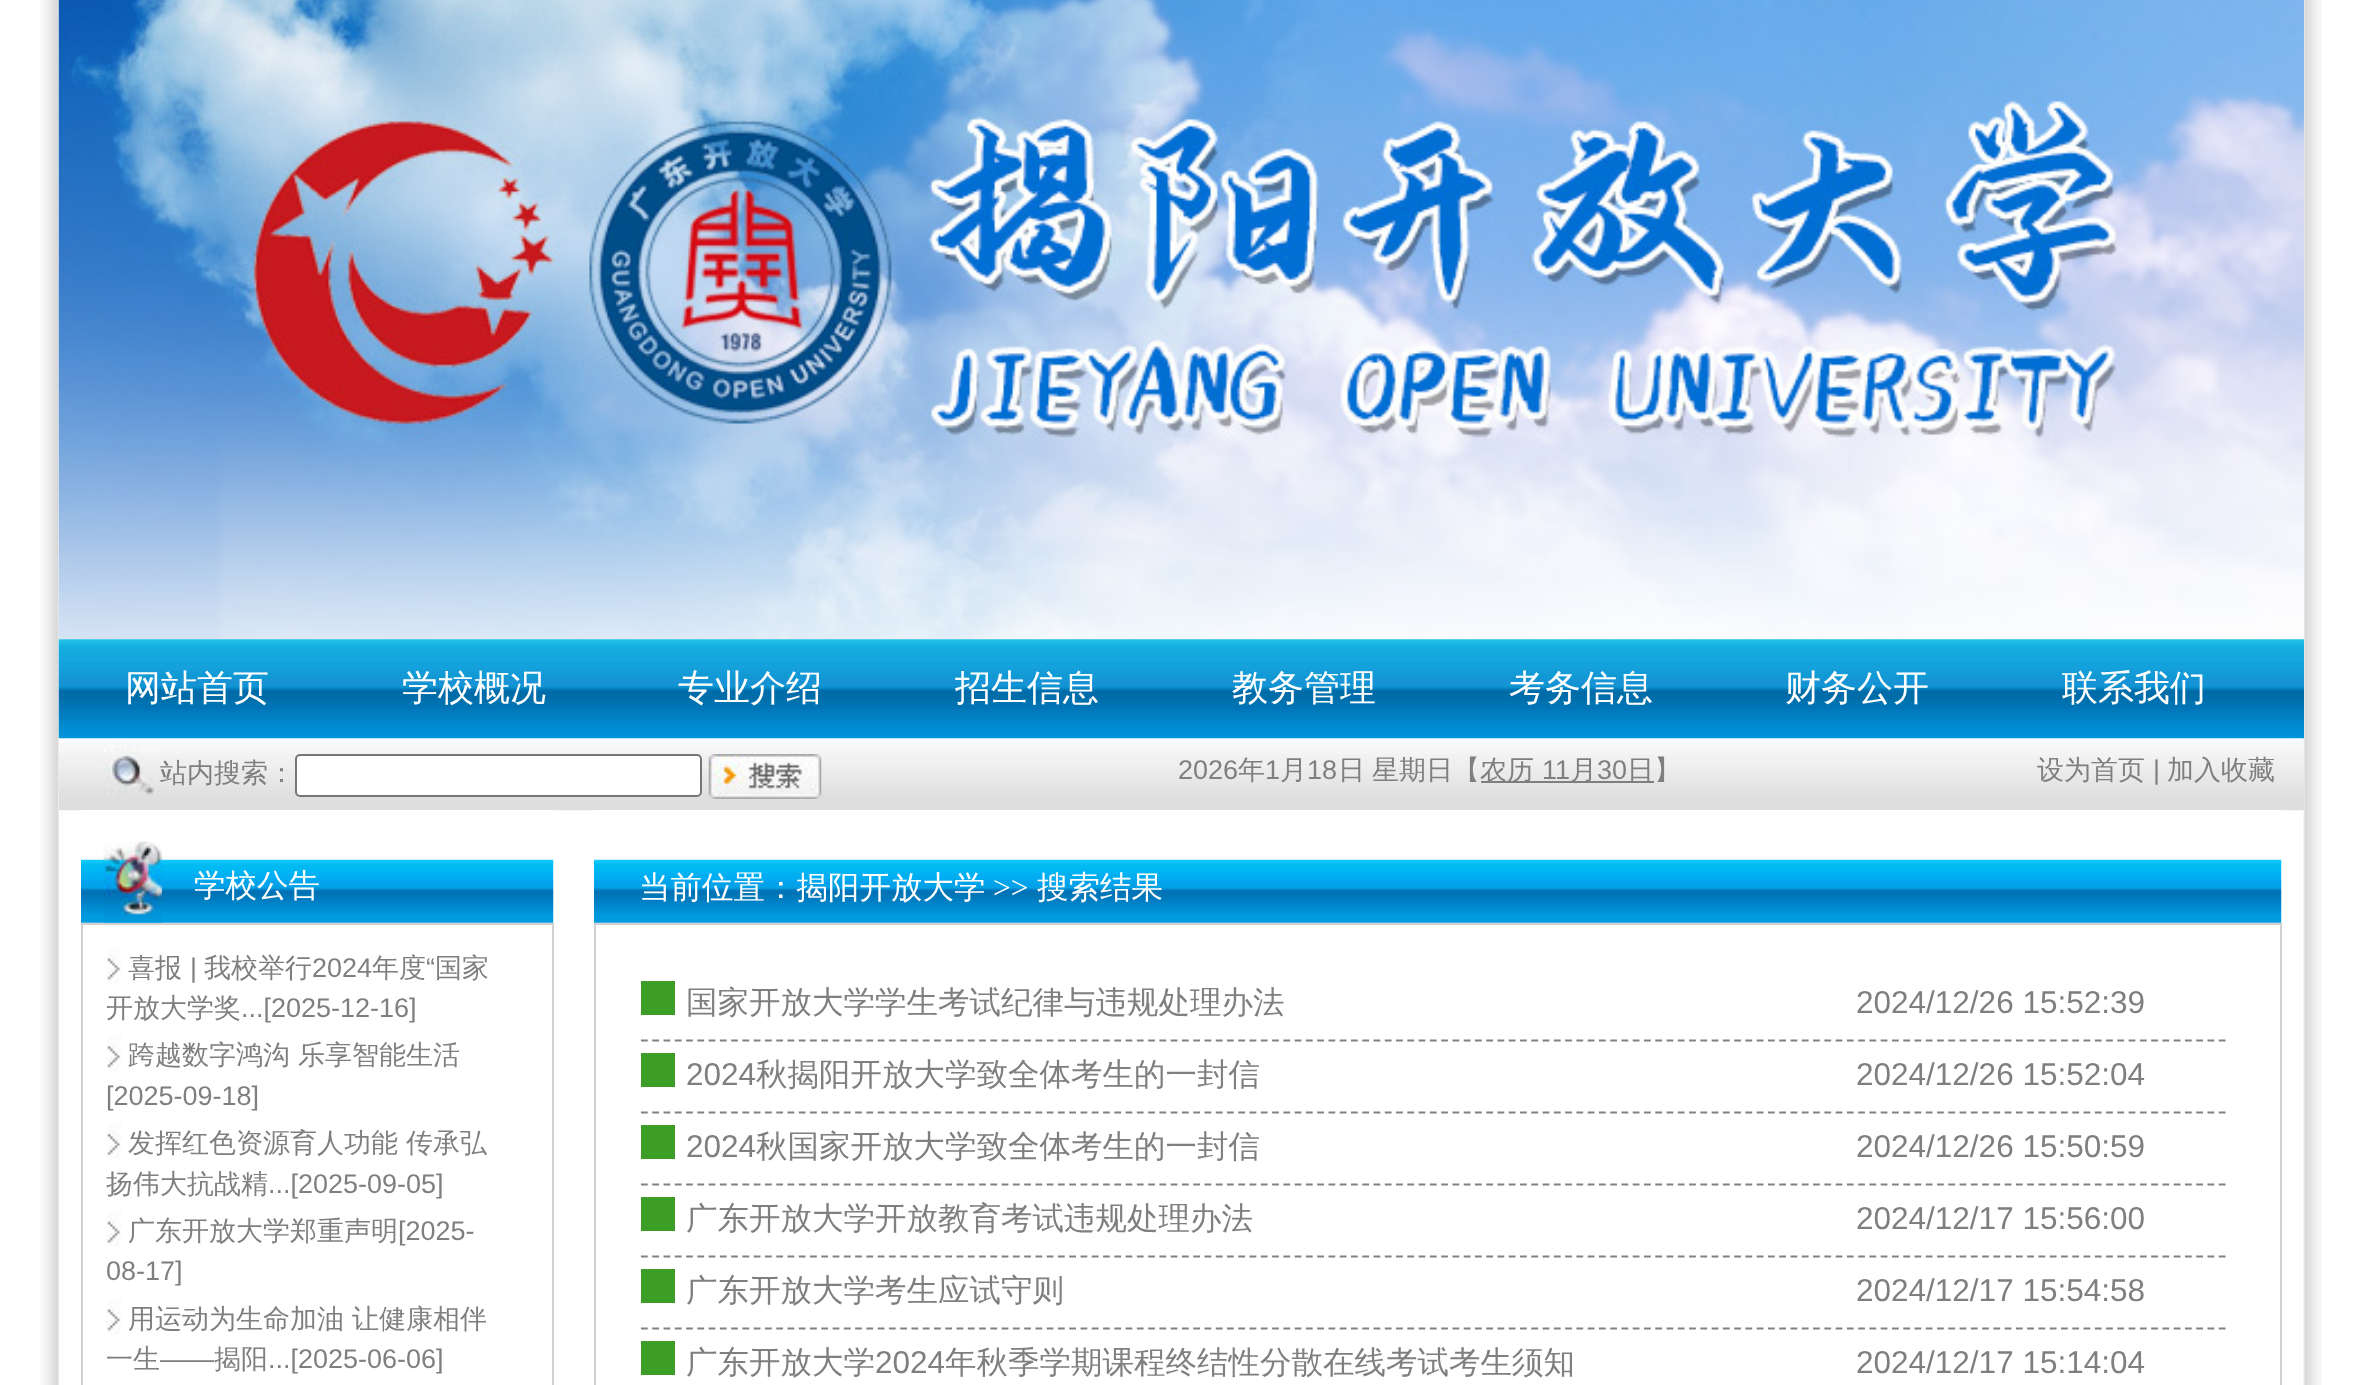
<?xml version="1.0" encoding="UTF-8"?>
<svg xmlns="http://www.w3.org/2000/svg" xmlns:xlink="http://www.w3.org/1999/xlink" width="2361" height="1385">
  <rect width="100%" height="100%" fill="#ffffff" />
  <image x="40" y="0" width="2282" height="1385" xlink:href="image1.png" />
  <image x="58" y="0" width="2246" height="640" xlink:href="image2.png" />
  <image x="58" y="639" width="2246" height="100" xlink:href="image3.png" />
  <image x="59" y="743" width="2245" height="68" xlink:href="image4.png" />
  <image x="103" y="743" width="54" height="53" xlink:href="image5.png" />
  <rect x="296" y="755" width="405" height="41" rx="4" fill="#ffffff" stroke="#767676" stroke-width="2" />
  <image x="708" y="754" width="114" height="45" xlink:href="image6.png" />
  <rect x="1481" y="781" width="173" height="2" fill="#7f7f7f" />
  <rect x="81" y="810" width="473" height="1" fill="#ffffff" />
  <image x="81" y="859" width="473" height="64" xlink:href="image7.png" />
  <image x="103" y="841" width="59" height="82" xlink:href="image8.png" />
  <rect x="82" y="924" width="471" height="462" fill="none" stroke="#d1d1d1" stroke-width="2" />
  <image x="106" y="948" width="16" height="36" xlink:href="image9.png" />
  <image x="106" y="1035" width="16" height="37" xlink:href="image10.png" />
  <image x="106" y="1123" width="16" height="36" xlink:href="image11.png" />
  <image x="106" y="1211" width="16" height="36" xlink:href="image12.png" />
  <image x="106" y="1298" width="16" height="37" xlink:href="image13.png" />
  <rect x="594" y="810" width="1688" height="1" fill="#ffffff" />
  <image x="594" y="859" width="1688" height="64" xlink:href="image14.png" />
  <rect x="595" y="924" width="1686" height="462" fill="none" stroke="#d1d1d1" stroke-width="2" />
  <path d="M 641 1040.5 h 1586.5" fill="none" stroke="#808080" stroke-width="2.2" stroke-dasharray="6.75 4.52" />
  <rect x="641" y="981" width="34" height="34" fill="#3c9e27" />
  <path d="M 641 1112.5 h 1586.5" fill="none" stroke="#808080" stroke-width="2.2" stroke-dasharray="6.75 4.52" />
  <rect x="641" y="1053" width="34" height="34" fill="#3c9e27" />
  <path d="M 641 1184.5 h 1586.5" fill="none" stroke="#808080" stroke-width="2.2" stroke-dasharray="6.75 4.52" />
  <rect x="641" y="1125" width="34" height="34" fill="#3c9e27" />
  <path d="M 641 1256.5 h 1586.5" fill="none" stroke="#808080" stroke-width="2.2" stroke-dasharray="6.75 4.52" />
  <rect x="641" y="1197" width="34" height="34" fill="#3c9e27" />
  <path d="M 641 1328.5 h 1586.5" fill="none" stroke="#808080" stroke-width="2.2" stroke-dasharray="6.75 4.52" />
  <rect x="641" y="1269" width="34" height="34" fill="#3c9e27" />
  <rect x="641" y="1341" width="34" height="34" fill="#3c9e27" />
  <text x="125" y="700" style="font-family: WenQuanYi Zen Hei; font-size: 36px; font-weight: 500; fill: #ffffff">网站首页</text>
  <text x="402" y="700" style="font-family: WenQuanYi Zen Hei; font-size: 36px; font-weight: 500; fill: #ffffff">学校概况</text>
  <text x="678" y="700" style="font-family: WenQuanYi Zen Hei; font-size: 36px; font-weight: 500; fill: #ffffff">专业介绍</text>
  <text x="955" y="700" style="font-family: WenQuanYi Zen Hei; font-size: 36px; font-weight: 500; fill: #ffffff">招生信息</text>
  <text x="1232" y="700" style="font-family: WenQuanYi Zen Hei; font-size: 36px; font-weight: 500; fill: #ffffff">教务管理</text>
  <text x="1509" y="700" style="font-family: WenQuanYi Zen Hei; font-size: 36px; font-weight: 500; fill: #ffffff">考务信息</text>
  <text x="1785" y="700" style="font-family: WenQuanYi Zen Hei; font-size: 36px; font-weight: 500; fill: #ffffff">财务公开</text>
  <text x="2062" y="700" style="font-family: WenQuanYi Zen Hei; font-size: 36px; font-weight: 500; fill: #ffffff">联系我们</text>
  <text x="160" y="782" style="font-family: WenQuanYi Zen Hei; font-size: 27px; font-weight: 500; fill: #7f7f7f">站内搜索：</text>
  <text x="1178" y="779" style="font-family: Liberation Sans; font-size: 27px; fill: #7f7f7f">2026</text>
  <text x="1238" y="779" style="font-family: WenQuanYi Zen Hei; font-size: 27px; font-weight: 500; fill: #7f7f7f">年</text>
  <text x="1265" y="779" style="font-family: Liberation Sans; font-size: 27px; fill: #7f7f7f">1</text>
  <text x="1280" y="779" style="font-family: WenQuanYi Zen Hei; font-size: 27px; font-weight: 500; fill: #7f7f7f">月</text>
  <text x="1307" y="779" style="font-family: Liberation Sans; font-size: 27px; fill: #7f7f7f">18</text>
  <text x="1338" y="779" word-spacing="-1" style="font-family: WenQuanYi Zen Hei; font-size: 27px; font-weight: 500; fill: #7f7f7f">日 星期日</text>
  <text x="1453" y="779" style="font-family: WenQuanYi Zen Hei; font-size: 27px; font-weight: 500; fill: #7f7f7f">【</text>
  <text x="1480" y="779" style="font-family: WenQuanYi Zen Hei; font-size: 27px; font-weight: 500; fill: #7f7f7f">农历</text>
  <text x="1542" y="779" style="font-family: Liberation Sans; font-size: 27px; fill: #7f7f7f">11</text>
  <text x="1570" y="779" style="font-family: WenQuanYi Zen Hei; font-size: 27px; font-weight: 500; fill: #7f7f7f">月</text>
  <text x="1597" y="779" style="font-family: Liberation Sans; font-size: 27px; fill: #7f7f7f">30</text>
  <text x="1627" y="779" style="font-family: WenQuanYi Zen Hei; font-size: 27px; font-weight: 500; fill: #7f7f7f">日】</text>
  <text x="2037" y="779" style="font-family: WenQuanYi Zen Hei; font-size: 27px; font-weight: 500; fill: #7f7f7f">设为首页</text>
  <text x="2153" y="779" style="font-family: Liberation Sans; font-size: 27px; fill: #7f7f7f">|</text>
  <text x="2167" y="779" style="font-family: WenQuanYi Zen Hei; font-size: 27px; font-weight: 500; fill: #7f7f7f">加入收藏</text>
  <text x="194" y="896" style="font-family: WenQuanYi Zen Hei; font-size: 31.5px; font-weight: 500; fill: #ffffff">学校公告</text>
  <text x="128" y="977" style="font-family: WenQuanYi Zen Hei; font-size: 27px; font-weight: 500; fill: #7f7f7f">喜报</text>
  <text x="190" y="977" style="font-family: Liberation Sans; font-size: 27px; fill: #7f7f7f">|</text>
  <text x="204" y="977" style="font-family: WenQuanYi Zen Hei; font-size: 27px; font-weight: 500; fill: #7f7f7f">我校举行</text>
  <text x="312" y="977" style="font-family: Liberation Sans; font-size: 27px; fill: #7f7f7f">2024</text>
  <text x="372" y="977" style="font-family: WenQuanYi Zen Hei; font-size: 27px; font-weight: 500; fill: #7f7f7f">年度</text>
  <text x="426" y="977" style="font-family: Liberation Sans; font-size: 27px; fill: #7f7f7f">“</text>
  <text x="435" y="977" style="font-family: WenQuanYi Zen Hei; font-size: 27px; font-weight: 500; fill: #7f7f7f">国家</text>
  <text x="106" y="1017" style="font-family: WenQuanYi Zen Hei; font-size: 27px; font-weight: 500; fill: #7f7f7f">开放大学奖</text>
  <text x="241" y="1017" style="font-family: Liberation Sans; font-size: 27px; fill: #7f7f7f">...[2025-12-16]</text>
  <text x="128" y="1064" style="font-family: WenQuanYi Zen Hei; font-size: 27px; font-weight: 500; fill: #7f7f7f">跨越数字鸿沟</text>
  <text x="298" y="1064" style="font-family: WenQuanYi Zen Hei; font-size: 27px; font-weight: 500; fill: #7f7f7f">乐享智能生活</text>
  <text x="106" y="1105" style="font-family: Liberation Sans; font-size: 27px; fill: #7f7f7f">[2025-09-18]</text>
  <text x="128" y="1152" style="font-family: WenQuanYi Zen Hei; font-size: 27px; font-weight: 500; fill: #7f7f7f">发挥红色资源育人功能</text>
  <text x="406" y="1152" style="font-family: WenQuanYi Zen Hei; font-size: 27px; font-weight: 500; fill: #7f7f7f">传承弘</text>
  <text x="106" y="1193" style="font-family: WenQuanYi Zen Hei; font-size: 27px; font-weight: 500; fill: #7f7f7f">扬伟大抗战精</text>
  <text x="268" y="1193" style="font-family: Liberation Sans; font-size: 27px; fill: #7f7f7f">...[2025-09-05]</text>
  <text x="128" y="1240" style="font-family: WenQuanYi Zen Hei; font-size: 27px; font-weight: 500; fill: #7f7f7f">广东开放大学郑重声明</text>
  <text x="398" y="1240" style="font-family: Liberation Sans; font-size: 27px; fill: #7f7f7f">[2025-</text>
  <text x="106" y="1280" style="font-family: Liberation Sans; font-size: 27px; fill: #7f7f7f">08-17]</text>
  <text x="128" y="1328" style="font-family: WenQuanYi Zen Hei; font-size: 27px; font-weight: 500; fill: #7f7f7f">用运动为生命加油</text>
  <text x="352" y="1328" style="font-family: WenQuanYi Zen Hei; font-size: 27px; font-weight: 500; fill: #7f7f7f">让健康相伴</text>
  <text x="106" y="1368" style="font-family: WenQuanYi Zen Hei; font-size: 27px; font-weight: 500; fill: #7f7f7f">一生</text>
  <text x="160" y="1368" style="font-family: Liberation Sans; font-size: 27px; fill: #7f7f7f">——</text>
  <text x="214" y="1368" style="font-family: WenQuanYi Zen Hei; font-size: 27px; font-weight: 500; fill: #7f7f7f">揭阳</text>
  <text x="268" y="1368" style="font-family: Liberation Sans; font-size: 27px; fill: #7f7f7f">...[2025-06-06]</text>
  <text x="639" y="898" style="font-family: WenQuanYi Zen Hei; font-size: 31.5px; font-weight: 500; fill: #ffffff">当前位置：揭阳开放大学</text>
  <text x="993" y="898" style="font-family: Liberation Serif; font-size: 31.5px; fill: #ffffff">&gt;&gt;</text>
  <text x="1037" y="898" style="font-family: WenQuanYi Zen Hei; font-size: 31.5px; font-weight: 500; fill: #ffffff">搜索结果</text>
  <text x="686" y="1013" style="font-family: WenQuanYi Zen Hei; font-size: 31.5px; font-weight: 500; fill: #7f7f7f">国家开放大学学生考试纪律与违规处理办法</text>
  <text x="1856" y="1013" style="font-family: Liberation Sans; font-size: 31.5px; fill: #7f7f7f">2024/12/26 15:52:39</text>
  <text x="686" y="1085" style="font-family: Liberation Sans; font-size: 31.5px; fill: #7f7f7f">2024</text>
  <text x="756" y="1085" style="font-family: WenQuanYi Zen Hei; font-size: 31.5px; font-weight: 500; fill: #7f7f7f">秋揭阳开放大学致全体考生的一封信</text>
  <text x="1856" y="1085" style="font-family: Liberation Sans; font-size: 31.5px; fill: #7f7f7f">2024/12/26 15:52:04</text>
  <text x="686" y="1157" style="font-family: Liberation Sans; font-size: 31.5px; fill: #7f7f7f">2024</text>
  <text x="756" y="1157" style="font-family: WenQuanYi Zen Hei; font-size: 31.5px; font-weight: 500; fill: #7f7f7f">秋国家开放大学致全体考生的一封信</text>
  <text x="1856" y="1157" style="font-family: Liberation Sans; font-size: 31.5px; fill: #7f7f7f">2024/12/26 15:50:59</text>
  <text x="686" y="1229" style="font-family: WenQuanYi Zen Hei; font-size: 31.5px; font-weight: 500; fill: #7f7f7f">广东开放大学开放教育考试违规处理办法</text>
  <text x="1856" y="1229" style="font-family: Liberation Sans; font-size: 31.5px; fill: #7f7f7f">2024/12/17 15:56:00</text>
  <text x="686" y="1301" style="font-family: WenQuanYi Zen Hei; font-size: 31.5px; font-weight: 500; fill: #7f7f7f">广东开放大学考生应试守则</text>
  <text x="1856" y="1301" style="font-family: Liberation Sans; font-size: 31.5px; fill: #7f7f7f">2024/12/17 15:54:58</text>
  <text x="686" y="1373" style="font-family: WenQuanYi Zen Hei; font-size: 31.5px; font-weight: 500; fill: #7f7f7f">广东开放大学</text>
  <text x="875" y="1373" style="font-family: Liberation Sans; font-size: 31.5px; fill: #7f7f7f">2024</text>
  <text x="945" y="1373" style="font-family: WenQuanYi Zen Hei; font-size: 31.5px; font-weight: 500; fill: #7f7f7f">年秋季学期课程终结性分散在线考试考生须知</text>
  <text x="1856" y="1373" style="font-family: Liberation Sans; font-size: 31.5px; fill: #7f7f7f">2024/12/17 15:14:04</text>
</svg>
